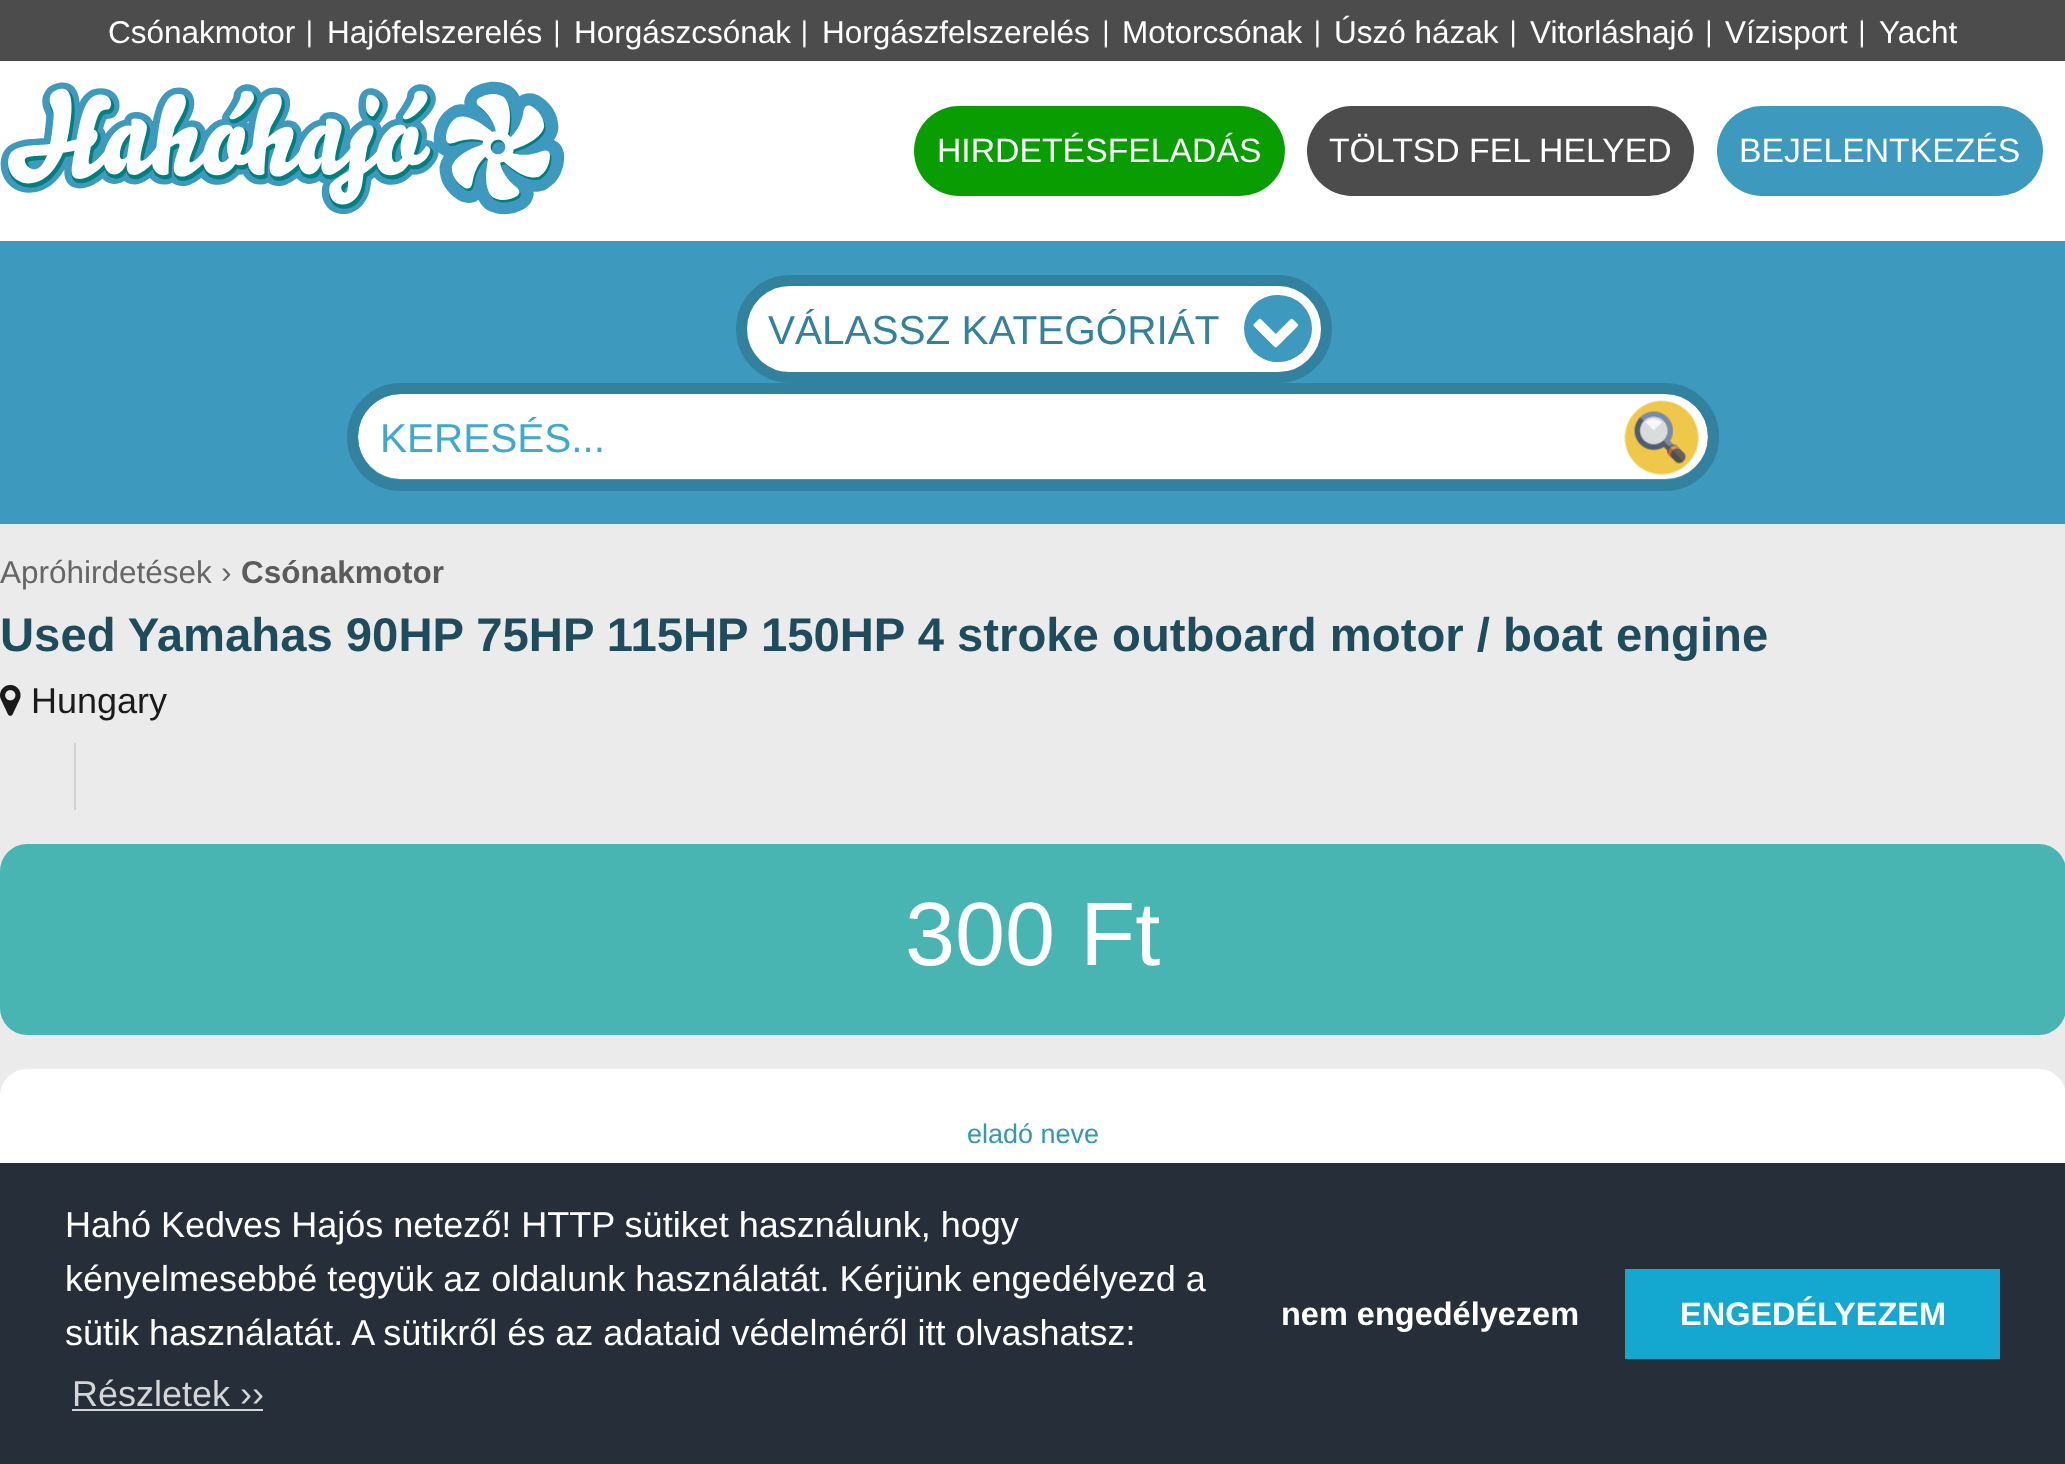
<?xml version="1.0" encoding="UTF-8"?>
<svg xmlns="http://www.w3.org/2000/svg" xmlns:xlink="http://www.w3.org/1999/xlink" width="2065" height="1464">
  <rect width="100%" height="100%" fill="#ebebeb" />
  <rect width="2065" height="61" fill="#4c4c4c" />
  <image x="308" y="19" width="3" height="29" xlink:href="image1.png" />
  <image x="555" y="19" width="3" height="29" xlink:href="image2.png" />
  <image x="803" y="19" width="3" height="29" xlink:href="image1.png" />
  <image x="1104" y="19" width="3" height="29" xlink:href="image2.png" />
  <image x="1316" y="19" width="3" height="29" xlink:href="image1.png" />
  <image x="1512" y="19" width="3" height="29" xlink:href="image3.png" />
  <image x="1707" y="19" width="3" height="29" xlink:href="image2.png" />
  <image x="1860" y="19" width="3" height="29" xlink:href="image2.png" />
  <rect y="61" width="2065" height="180" fill="#ffffff" />
  <image x="0" y="81" width="565" height="134" xlink:href="image4.png" />
  <rect x="914" y="106" width="371" height="90" rx="45" fill="#0a9d02" />
  <rect x="1307" y="106" width="387" height="90" rx="45" fill="#4c4c4c" />
  <rect x="1717" y="106" width="326" height="90" rx="45" fill="#3d99be" />
  <rect y="241" width="2065" height="283" fill="#3d99be" />
  <rect x="741.5" y="280.5" width="585" height="97" rx="48.5" fill="#ffffff" stroke="#32819f" stroke-width="11" />
  <rect x="1244" y="295" width="68" height="67" rx="33.5" fill="#3d99be" />
  <image x="1253" y="318" width="45" height="30" xlink:href="image5.png" />
  <rect x="358" y="394" width="1350" height="85" rx="42.5" fill="#ffffff" />
  <rect x="352.5" y="388.5" width="1361" height="97" rx="48.5" fill="none" stroke="#32819f" stroke-width="11" />
  <image x="1624" y="400" width="75" height="75" xlink:href="image6.png" />
  <image x="0" y="685" width="21" height="31" xlink:href="image7.png" />
  <rect x="74" y="743" width="2" height="67" fill="#d1d1d1" />
  <rect y="844" width="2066" height="191" rx="27" fill="#48b5b2" />
  <rect y="1069" width="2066" height="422" rx="27" fill="#ffffff" />
  <rect y="1163" width="2065" height="301" fill="#252e39" />
  <rect x="72" y="1409" width="191" height="2" fill="#d3d5d7" />
  <rect x="1625" y="1269" width="375" height="90" fill="#14a7d0" />
  <text x="108" y="43" style="font-family: Liberation Sans; font-size: 31.5px; fill: #ffffff">Csónakmotor</text>
  <text x="327" y="43" style="font-family: Liberation Sans; font-size: 31.5px; fill: #ffffff">Hajófelszerelés</text>
  <text x="574" y="43" style="font-family: Liberation Sans; font-size: 31.5px; fill: #ffffff">Horgászcsónak</text>
  <text x="822" y="43" style="font-family: Liberation Sans; font-size: 31.5px; fill: #ffffff">Horgászfelszerelés</text>
  <text x="1122" y="43" style="font-family: Liberation Sans; font-size: 31.5px; fill: #ffffff">Motorcsónak</text>
  <text x="1334" y="43" style="font-family: Liberation Sans; font-size: 31.5px; fill: #ffffff">Úszó házak</text>
  <text x="1530" y="43" style="font-family: Liberation Sans; font-size: 31.5px; fill: #ffffff">Vitorláshajó</text>
  <text x="1725" y="43" style="font-family: Liberation Sans; font-size: 31.5px; fill: #ffffff">Vízisport</text>
  <text x="1879" y="43" style="font-family: Liberation Sans; font-size: 31.5px; fill: #ffffff">Yacht</text>
  <text x="937" y="162" style="font-family: Liberation Sans; font-size: 33.75px; fill: #ffffff">HIRDETÉSFELADÁS</text>
  <text x="1329" y="162" style="font-family: Liberation Sans; font-size: 33.75px; fill: #ffffff">TÖLTSD FEL HELYED</text>
  <text x="1739" y="162" style="font-family: Liberation Sans; font-size: 33.75px; fill: #ffffff">BEJELENTKEZÉS</text>
  <text x="768" y="344" style="font-family: Liberation Sans; font-size: 40.5px; fill: #32819f">VÁLASSZ KATEGÓRIÁT</text>
  <text x="380" y="452" style="font-family: Liberation Sans; font-size: 40.5px; fill: #41a9d0">KERESÉS...</text>
  <text x="0" y="583" style="font-family: Liberation Sans; font-size: 31.5px; fill: #666666">Apróhirdetések</text>
  <text x="221" y="583" style="font-family: Liberation Sans; font-size: 31.5px; fill: #666666">›</text>
  <text x="241" y="583" style="font-family: Liberation Sans; font-size: 31.5px; font-weight: bold; fill: #5b5b5b">Csónakmotor</text>
  <text x="0" y="651" style="font-family: Liberation Sans; font-size: 47.25px; font-weight: bold; fill: #1e4c5c">Used Yamahas 90HP 75HP 115HP 150HP 4 stroke outboard motor / boat engine</text>
  <text x="31" y="713" style="font-family: Liberation Sans; font-size: 36px; fill: #1a1a1a">Hungary</text>
  <text x="905" y="965" style="font-family: Liberation Sans; font-size: 90px; fill: #ffffff">300 Ft</text>
  <text x="967" y="1143" style="font-family: Liberation Sans; font-size: 27px; fill: #3498b2">eladó neve</text>
  <text x="65" y="1237" style="font-family: Liberation Sans; font-size: 36px; fill: #ffffff">Hahó Kedves Hajós netező! HTTP sütiket használunk, hogy</text>
  <text x="65" y="1291" style="font-family: Liberation Sans; font-size: 36px; fill: #ffffff">kényelmesebbé tegyük az oldalunk használatát. Kérjünk engedélyezd a</text>
  <text x="65" y="1345" style="font-family: Liberation Sans; font-size: 36px; fill: #ffffff">sütik használatát. A sütikről és az adataid védelméről itt olvashatsz:</text>
  <text x="72" y="1406" style="font-family: Liberation Sans; font-size: 36px; fill: #d3d5d7">Részletek ››</text>
  <text x="1281" y="1325" style="font-family: Liberation Sans; font-size: 32.5px; font-weight: bold; fill: #ffffff">nem engedélyezem</text>
  <text x="1680" y="1325" style="font-family: Liberation Sans; font-size: 32.5px; font-weight: bold; fill: #ffffff">ENGEDÉLYEZEM</text>
</svg>
